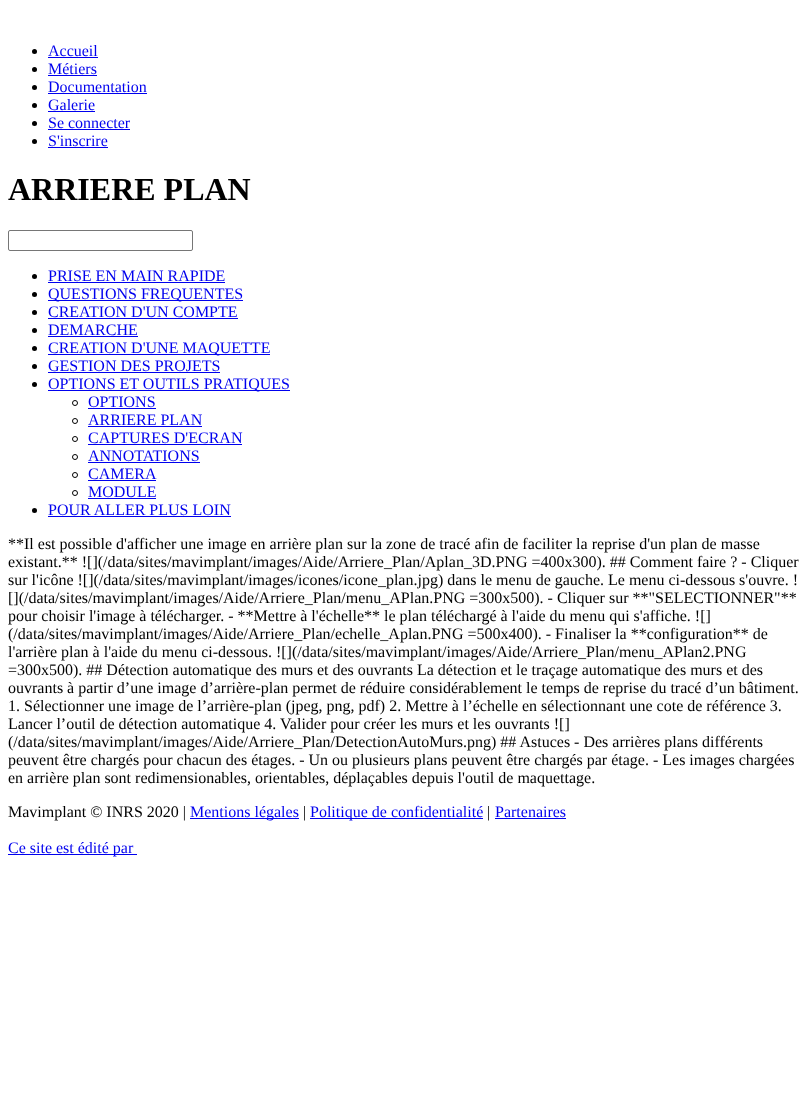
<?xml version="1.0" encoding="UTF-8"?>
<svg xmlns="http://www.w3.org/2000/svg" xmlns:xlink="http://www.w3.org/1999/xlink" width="807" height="1102">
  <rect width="100%" height="100%" fill="#ffffff" />
  <circle cx="34.5" cy="51.5" r="2.5" fill="#000000" />
  <rect x="48" y="57" width="50" height="1" fill="#0000ee" />
  <circle cx="34.5" cy="69.5" r="2.5" fill="#000000" />
  <rect x="48" y="75" width="49" height="1" fill="#0000ee" />
  <circle cx="34.5" cy="87.5" r="2.5" fill="#000000" />
  <rect x="48" y="93" width="99" height="1" fill="#0000ee" />
  <circle cx="34.5" cy="105.5" r="2.5" fill="#000000" />
  <rect x="48" y="111" width="47" height="1" fill="#0000ee" />
  <circle cx="34.5" cy="123.5" r="2.5" fill="#000000" />
  <rect x="48" y="129" width="82" height="1" fill="#0000ee" />
  <circle cx="34.5" cy="141.5" r="2.5" fill="#000000" />
  <rect x="48" y="147" width="60" height="1" fill="#0000ee" />
  <rect x="8.5" y="230.5" width="184" height="20" rx="1.5" fill="none" stroke="#767676" />
  <circle cx="34.5" cy="276.5" r="2.5" fill="#000000" />
  <rect x="48" y="282" width="177" height="1" fill="#0000ee" />
  <circle cx="34.5" cy="294.5" r="2.5" fill="#000000" />
  <rect x="48" y="300" width="195" height="1" fill="#0000ee" />
  <circle cx="34.5" cy="312.5" r="2.5" fill="#000000" />
  <rect x="48" y="318" width="190" height="1" fill="#0000ee" />
  <circle cx="34.5" cy="330.5" r="2.5" fill="#000000" />
  <rect x="48" y="336" width="90" height="1" fill="#0000ee" />
  <circle cx="34.5" cy="348.5" r="2.5" fill="#000000" />
  <rect x="48" y="354" width="222" height="1" fill="#0000ee" />
  <circle cx="34.5" cy="366.5" r="2.5" fill="#000000" />
  <rect x="48" y="372" width="172" height="1" fill="#0000ee" />
  <circle cx="34.5" cy="384.5" r="2.5" fill="#000000" />
  <rect x="48" y="390" width="242" height="1" fill="#0000ee" />
  <circle cx="75" cy="403" r="2.5" fill="none" stroke="#000000" />
  <rect x="88" y="408" width="68" height="1" fill="#0000ee" />
  <circle cx="75" cy="421" r="2.5" fill="none" stroke="#000000" />
  <rect x="88" y="426" width="114" height="1" fill="#0000ee" />
  <circle cx="75" cy="439" r="2.5" fill="none" stroke="#000000" />
  <rect x="88" y="444" width="154" height="1" fill="#0000ee" />
  <circle cx="75" cy="457" r="2.5" fill="none" stroke="#000000" />
  <rect x="88" y="462" width="112" height="1" fill="#0000ee" />
  <circle cx="75" cy="475" r="2.5" fill="none" stroke="#000000" />
  <rect x="88" y="480" width="68" height="1" fill="#0000ee" />
  <circle cx="75" cy="493" r="2.5" fill="none" stroke="#000000" />
  <rect x="88" y="498" width="68" height="1" fill="#0000ee" />
  <circle cx="34.5" cy="510.5" r="2.5" fill="#000000" />
  <rect x="48" y="516" width="183" height="1" fill="#0000ee" />
  <rect x="190" y="818" width="109" height="1" fill="#0000ee" />
  <rect x="310" y="818" width="173" height="1" fill="#0000ee" />
  <rect x="495" y="818" width="71" height="1" fill="#0000ee" />
  <rect x="8" y="854" width="129" height="1" fill="#0000ee" />
  <text x="48" y="56" style="font-family: Liberation Serif; font-size: 16px; fill: #0000ee">Accueil</text>
  <text x="48" y="74" style="font-family: Liberation Serif; font-size: 16px; fill: #0000ee">Métiers</text>
  <text x="48" y="92" style="font-family: Liberation Serif; font-size: 16px; fill: #0000ee">Documentation</text>
  <text x="48" y="110" style="font-family: Liberation Serif; font-size: 16px; fill: #0000ee">Galerie</text>
  <text x="48" y="128" style="font-family: Liberation Serif; font-size: 16px; fill: #0000ee">Se connecter</text>
  <text x="48" y="146" style="font-family: Liberation Serif; font-size: 16px; fill: #0000ee">S'inscrire</text>
  <text x="8" y="200" style="font-family: Liberation Serif; font-size: 32px; font-weight: bold; fill: #000000">ARRIERE PLAN</text>
  <text x="48" y="281" style="font-family: Liberation Serif; font-size: 16px; fill: #0000ee">PRISE EN MAIN RAPIDE</text>
  <text x="48" y="299" style="font-family: Liberation Serif; font-size: 16px; fill: #0000ee">QUESTIONS FREQUENTES</text>
  <text x="48" y="317" style="font-family: Liberation Serif; font-size: 16px; fill: #0000ee">CREATION D'UN COMPTE</text>
  <text x="48" y="335" style="font-family: Liberation Serif; font-size: 16px; fill: #0000ee">DEMARCHE</text>
  <text x="48" y="353" style="font-family: Liberation Serif; font-size: 16px; fill: #0000ee">CREATION D'UNE MAQUETTE</text>
  <text x="48" y="371" style="font-family: Liberation Serif; font-size: 16px; fill: #0000ee">GESTION DES PROJETS</text>
  <text x="48" y="389" style="font-family: Liberation Serif; font-size: 16px; fill: #0000ee">OPTIONS ET OUTILS PRATIQUES</text>
  <text x="88" y="407" style="font-family: Liberation Serif; font-size: 16px; fill: #0000ee">OPTIONS</text>
  <text x="88" y="425" style="font-family: Liberation Serif; font-size: 16px; fill: #0000ee">ARRIERE PLAN</text>
  <text x="88" y="443" style="font-family: Liberation Serif; font-size: 16px; fill: #0000ee">CAPTURES D'ECRAN</text>
  <text x="88" y="461" style="font-family: Liberation Serif; font-size: 16px; fill: #0000ee">ANNOTATIONS</text>
  <text x="88" y="479" style="font-family: Liberation Serif; font-size: 16px; fill: #0000ee">CAMERA</text>
  <text x="88" y="497" style="font-family: Liberation Serif; font-size: 16px; fill: #0000ee">MODULE</text>
  <text x="48" y="515" style="font-family: Liberation Serif; font-size: 16px; fill: #0000ee">POUR ALLER PLUS LOIN</text>
  <text x="8" y="549" style="font-family: Liberation Serif; font-size: 16px; fill: #000000">**Il est possible d'afficher une image en arrière plan sur la zone de tracé afin de faciliter la reprise d'un plan de masse</text>
  <text x="8" y="567" style="font-family: Liberation Serif; font-size: 16px; fill: #000000">existant.** ![](/data/sites/mavimplant/images/Aide/Arriere_Plan/Aplan_3D.PNG =400x300). ## Comment faire ? - Cliquer</text>
  <text x="8" y="585" style="font-family: Liberation Serif; font-size: 16px; fill: #000000">sur l'icône ![](/data/sites/mavimplant/images/icones/icone_plan.jpg) dans le menu de gauche. Le menu ci-dessous s'ouvre. !</text>
  <text x="8" y="603" style="font-family: Liberation Serif; font-size: 16px; fill: #000000">[](/data/sites/mavimplant/images/Aide/Arriere_Plan/menu_APlan.PNG =300x500). - Cliquer sur **"SELECTIONNER"**</text>
  <text x="8" y="621" style="font-family: Liberation Serif; font-size: 16px; fill: #000000">pour choisir l'image à télécharger. - **Mettre à l'échelle** le plan téléchargé à l'aide du menu qui s'affiche. ![]</text>
  <text x="8" y="639" style="font-family: Liberation Serif; font-size: 16px; fill: #000000">(/data/sites/mavimplant/images/Aide/Arriere_Plan/echelle_Aplan.PNG =500x400). - Finaliser la **configuration** de</text>
  <text x="8" y="657" style="font-family: Liberation Serif; font-size: 16px; fill: #000000">l'arrière plan à l'aide du menu ci-dessous. ![](/data/sites/mavimplant/images/Aide/Arriere_Plan/menu_APlan2.PNG</text>
  <text x="8" y="675" style="font-family: Liberation Serif; font-size: 16px; fill: #000000">=300x500). ## Détection automatique des murs et des ouvrants La détection et le traçage automatique des murs et des</text>
  <text x="8" y="693" style="font-family: Liberation Serif; font-size: 16px; fill: #000000">ouvrants à partir d’une image d’arrière-plan permet de réduire considérablement le temps de reprise du tracé d’un bâtiment.</text>
  <text x="8" y="711" style="font-family: Liberation Serif; font-size: 16px; fill: #000000">1. Sélectionner une image de l’arrière-plan (jpeg, png, pdf) 2. Mettre à l’échelle en sélectionnant une cote de référence 3.</text>
  <text x="8" y="729" style="font-family: Liberation Serif; font-size: 16px; fill: #000000">Lancer l’outil de détection automatique 4. Valider pour créer les murs et les ouvrants ![]</text>
  <text x="8" y="747" style="font-family: Liberation Serif; font-size: 16px; fill: #000000">(/data/sites/mavimplant/images/Aide/Arriere_Plan/DetectionAutoMurs.png) ## Astuces - Des arrières plans différents</text>
  <text x="8" y="765" style="font-family: Liberation Serif; font-size: 16px; fill: #000000">peuvent être chargés pour chacun des étages. - Un ou plusieurs plans peuvent être chargés par étage. - Les images chargées</text>
  <text x="8" y="783" style="font-family: Liberation Serif; font-size: 16px; fill: #000000">en arrière plan sont redimensionables, orientables, déplaçables depuis l'outil de maquettage.</text>
  <text x="8" y="817" style="font-family: Liberation Serif; font-size: 16px; fill: #000000">Mavimplant © INRS 2020 |</text>
  <text x="190" y="817" style="font-family: Liberation Serif; font-size: 16px; fill: #0000ee">Mentions légales</text>
  <text x="303" y="817" style="font-family: Liberation Serif; font-size: 16px; fill: #000000">|</text>
  <text x="310" y="817" style="font-family: Liberation Serif; font-size: 16px; fill: #0000ee">Politique de confidentialité</text>
  <text x="487" y="817" style="font-family: Liberation Serif; font-size: 16px; fill: #000000">|</text>
  <text x="495" y="817" style="font-family: Liberation Serif; font-size: 16px; fill: #0000ee">Partenaires</text>
  <text x="8" y="853" style="font-family: Liberation Serif; font-size: 16px; fill: #0000ee">Ce site est édité par</text>
</svg>
